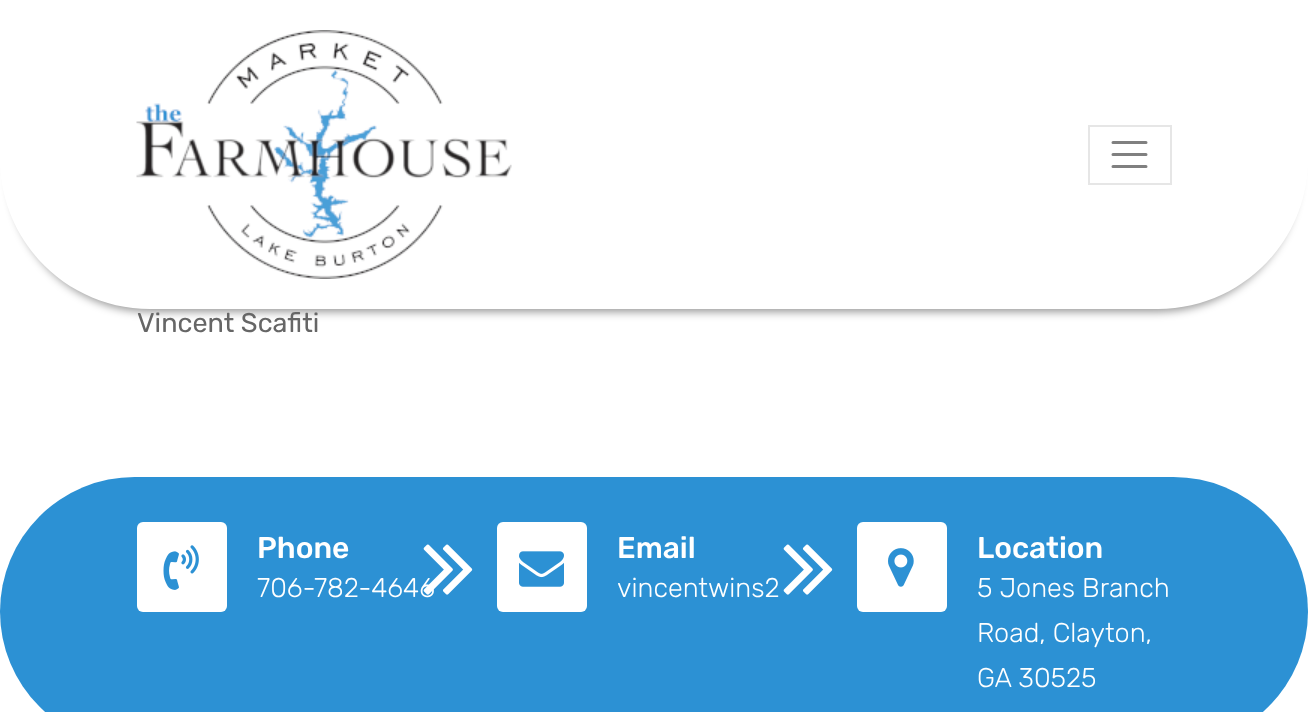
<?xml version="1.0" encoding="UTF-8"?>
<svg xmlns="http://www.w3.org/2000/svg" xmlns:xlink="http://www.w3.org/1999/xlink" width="1308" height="712">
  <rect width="100%" height="100%" fill="#ffffff" />
  <rect x="9" y="21" width="1290" height="291" rx="141" fill="#000000" fill-opacity="0.4" filter="blur(4.5px)" />
  <path d="M 0 0 h 1308 v 159 c 0 83 -67 150 -150 150 h -1008 c -83 0 -150 -67 -150 -150 z" fill="#ffffff" />
  <image x="136" y="30" width="376" height="249" xlink:href="image1.png" />
  <rect x="1089" y="126" width="82" height="58" fill="none" stroke="#e6e6e6" stroke-width="2" />
  <path d="M 1113 142.5 h 33 m -33 12 h 33 m -33 12 h 33" fill="none" stroke="#808080" stroke-width="3" stroke-linecap="round" />
  <rect y="477" width="1308" height="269" rx="134.5" fill="#2c91d4" />
  <rect x="137" y="522" width="90" height="90" rx="6" fill="#ffffff" />
  <image x="163" y="545" width="36" height="45" xlink:href="image2.png" />
  <rect x="497" y="522" width="90" height="90" rx="6" fill="#ffffff" />
  <image x="519" y="551" width="45" height="36" xlink:href="image4.png" />
  <image x="783" y="544" width="50" height="51" xlink:href="image5.png" />
  <rect x="857" y="522" width="90" height="90" rx="6" fill="#ffffff" />
  <image x="888" y="548" width="26" height="39" xlink:href="image6.png" />
  <text x="137" y="332" style="font-family: Rubik; font-size: 27px; fill: #666666">Vincent Scafiti</text>
  <text x="257" y="558" style="font-family: Rubik; font-size: 30px; font-weight: 500; fill: #ffffff">Phone</text>
  <text x="257" y="597" style="font-family: Rubik; font-size: 27px; font-weight: 300; fill: #ffffff">706-782-4646</text>
  <image x="423" y="544" width="50" height="51" xlink:href="image3.png" />
  <text x="617" y="558" style="font-family: Rubik; font-size: 30px; font-weight: 500; fill: #ffffff">Email</text>
  <text x="617" y="597" style="font-family: Rubik; font-size: 27px; font-weight: 300; fill: #ffffff">vincentwins2</text>
  <text x="977" y="558" style="font-family: Rubik; font-size: 30px; font-weight: 500; fill: #ffffff">Location</text>
  <text x="977" y="597" style="font-family: Rubik; font-size: 27px; font-weight: 300; fill: #ffffff">5 Jones Branch</text>
  <text x="977" y="642" style="font-family: Rubik; font-size: 27px; font-weight: 300; fill: #ffffff">Road, Clayton,</text>
  <text x="977" y="687" style="font-family: Rubik; font-size: 27px; font-weight: 300; fill: #ffffff">GA 30525</text>
</svg>
